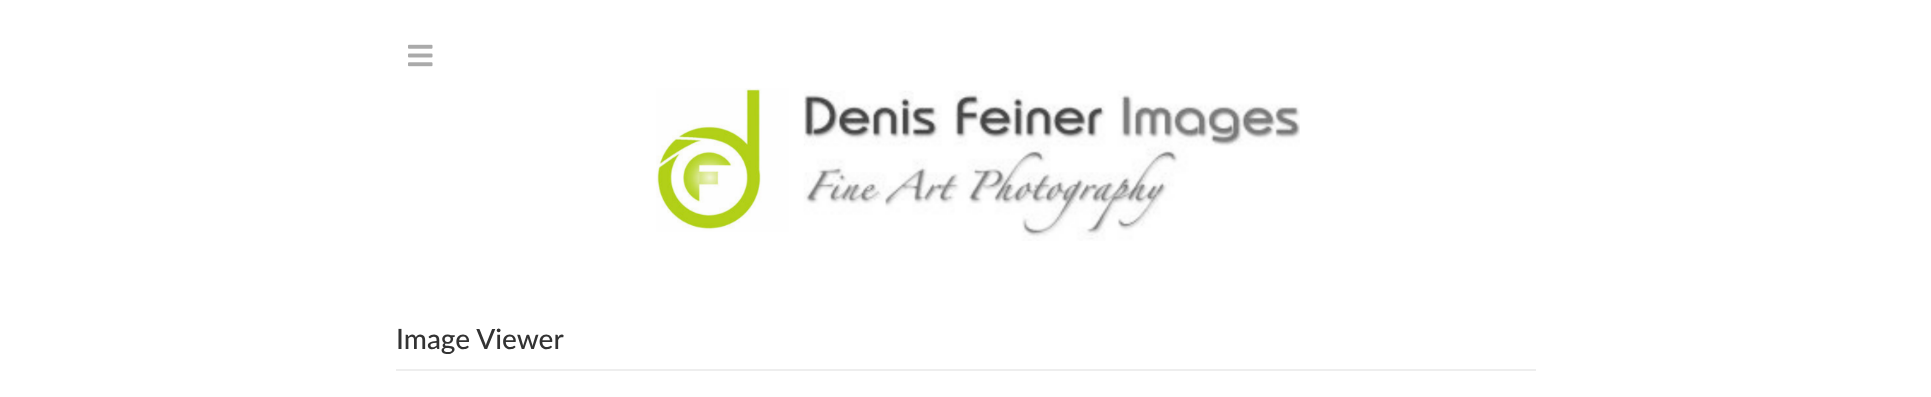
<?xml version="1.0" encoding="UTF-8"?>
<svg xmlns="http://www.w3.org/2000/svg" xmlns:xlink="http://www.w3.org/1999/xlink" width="1931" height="397">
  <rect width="100%" height="100%" fill="#ffffff" />
  <image x="408" y="44" width="25" height="23" xlink:href="image1.png" />
  <image x="656" y="88" width="644" height="153" xlink:href="image2.png" />
  <rect x="396" y="369" width="1140" height="2" fill="#eeeeee" />
  <text x="396" y="349" style="font-family: Lato; font-size: 28px; font-weight: 500; fill: #333333">Image Viewer</text>
</svg>
